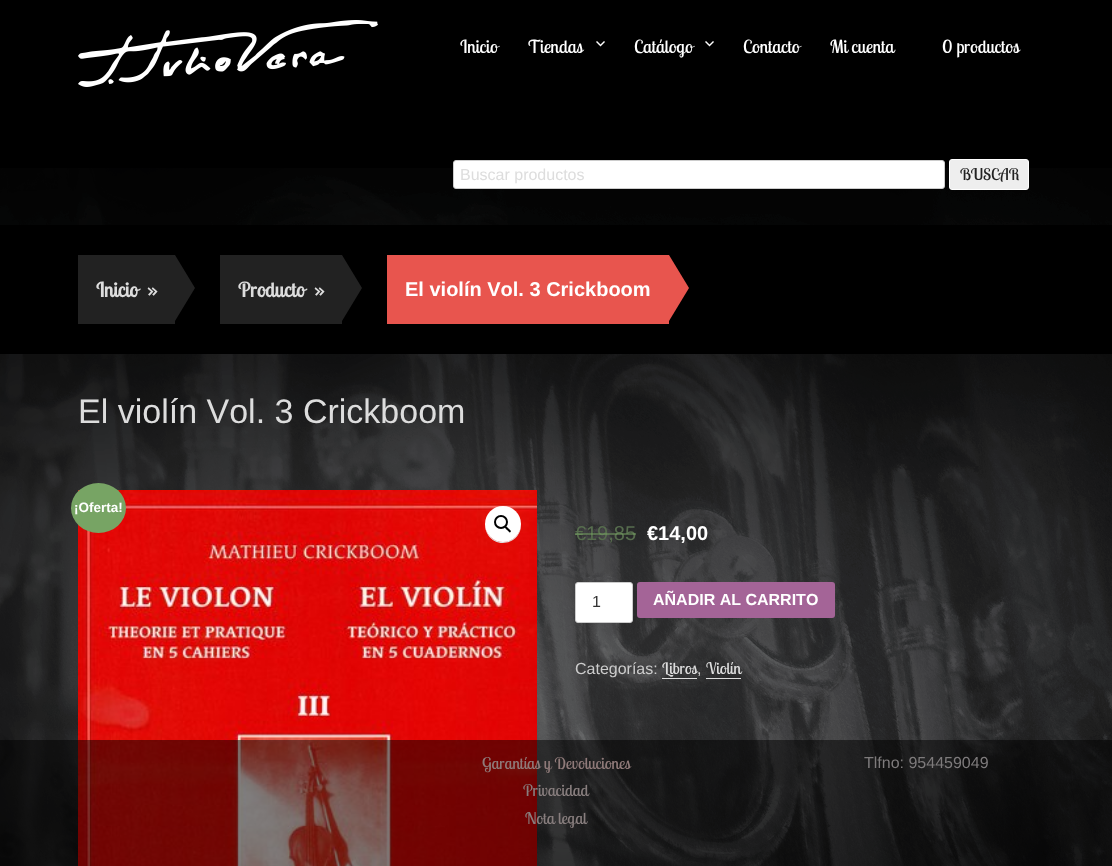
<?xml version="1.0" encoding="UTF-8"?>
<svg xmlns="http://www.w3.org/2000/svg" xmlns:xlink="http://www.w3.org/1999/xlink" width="1112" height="866">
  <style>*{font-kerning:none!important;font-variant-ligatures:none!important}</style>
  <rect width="100%" height="100%" fill="#000000" />
  <image x="0" y="168" width="1112" height="698" xlink:href="image1.png" />
  <image x="78" y="20" width="300" height="67" xlink:href="image2.png" />
  <image x="596" y="41" width="9" height="6" xlink:href="image3.png" />
  <image x="705" y="41" width="9" height="6" xlink:href="image3.png" />
  <rect x="453.5" y="160.5" width="491" height="28" rx="2.5" fill="#ffffff" stroke="#cccccc" />
  <rect x="949.5" y="159.5" width="79" height="30" rx="2.5" fill="#eeeeee" stroke="#ffffff" />
  <rect y="225" width="1112" height="129" fill="#000000" />
  <rect x="78" y="255" width="97" height="69" fill="#222222" />
  <path d="M 175 321 v -66 l 20 33 z" fill="#222222" />
  <rect x="220" y="255" width="122" height="69" fill="#222222" />
  <path d="M 342 321 v -66 l 20 33 z" fill="#222222" />
  <rect x="387" y="255" width="282" height="69" fill="#e8554e" />
  <path d="M 669 321 v -66 l 20 33 z" fill="#e8554e" />
  <image x="78" y="490" width="459" height="376" xlink:href="image4.png" />
  <path d="M 485 524.5 c 0 3.5 1 7.5 3 10.5 c 10 15 33.5 7.5 33 -10.5 c -0.5 9.5 -8 17.5 -18 17.5 c -10 0 -17.5 -8 -18 -17.5 z" fill="#dddddd" />
  <circle cx="503" cy="524" r="18" fill="#ffffff" />
  <circle cx="501" cy="522" r="6" fill="none" stroke="#000000" stroke-width="2" />
  <path d="M 505 526.5 c 1 -1 3 1.5 3.5 2 c 0.5 0.5 3.5 2.5 2 3.5 c -1 1.5 -2.5 -1.5 -3.5 -2 c -0.5 -0.5 -3 -2.5 -2 -3.5 z" fill="#000000" />
  <ellipse cx="98.5" cy="508" rx="27.5" ry="25" fill="#77a464" />
  <rect x="575.5" y="582.5" width="57" height="40" rx="2.5" fill="#ffffff" stroke="#cccccc" />
  <rect x="637" y="582" width="198" height="36" rx="3" fill="#a46497" />
  <rect x="662" y="678" width="35" height="1" fill="#dddddd" />
  <rect x="706" y="678" width="35" height="1" fill="#dddddd" />
  <rect y="740" width="1112" height="126" fill="#000000" fill-opacity="0.5" />
  <text x="460" y="53" style="font-family: Lobster Two; font-size: 18px; fill: #ffffff">Inicio</text>
  <text x="528" y="53" style="font-family: Lobster Two; font-size: 18px; fill: #ffffff">Tiendas</text>
  <text x="634" y="53" style="font-family: Lobster Two; font-size: 18px; fill: #ffffff">Catálogo</text>
  <text x="743" y="53" style="font-family: Lobster Two; font-size: 18px; fill: #ffffff">Contacto</text>
  <text x="830" y="53" style="font-family: Lobster Two; font-size: 18px; fill: #ffffff">Mi cuenta</text>
  <text x="942" y="53" style="font-family: Lobster Two; font-size: 18px; fill: #ffffff">0 productos</text>
  <text x="460" y="180" style="font-family: Liberation Sans; font-size: 16px; fill: #dddddd">Buscar productos</text>
  <text x="960" y="180" style="font-family: Lobster Two; font-size: 16px; fill: #222222">BUSCAR</text>
  <text x="96" y="297" style="font-family: Lobster Two; font-size: 20px; font-weight: bold; fill: #dddddd">Inicio</text>
  <text x="147" y="297" style="font-family: Lobster Two; font-size: 20px; font-weight: bold; fill: #dddddd">»</text>
  <text x="238" y="297" style="font-family: Lobster Two; font-size: 20px; font-weight: bold; fill: #dddddd">Producto</text>
  <text x="314" y="297" style="font-family: Lobster Two; font-size: 20px; font-weight: bold; fill: #dddddd">»</text>
  <text x="405" y="296" style="font-family: Liberation Sans; font-size: 20px; font-weight: bold; fill: #ffffff">El violín Vol. 3 Crickboom</text>
  <text x="78" y="423" style="font-family: Liberation Sans; font-size: 34px; fill: #dddddd">El violín Vol. 3 Crickboom</text>
  <text x="74" y="512" style="font-family: Liberation Sans; font-size: 13.5px; font-weight: bold; fill: #ffffff">¡Oferta!</text>
  <text x="575" y="540" style="font-family: Liberation Sans; font-size: 20px; fill: #576d4e">€</text>
  <rect x="575" y="533" width="11" height="2" fill="#77a464" fill-opacity="0.5" />
  <text x="586" y="540" style="font-family: Liberation Sans; font-size: 20px; fill: #576d4e">19,85</text>
  <rect x="586" y="533" width="50" height="2" fill="#77a464" fill-opacity="0.5" />
  <text x="647" y="540" style="font-family: Liberation Sans; font-size: 20px; font-weight: bold; fill: #ffffff">€14,00</text>
  <text x="592" y="607" style="font-family: Liberation Sans; font-size: 16px; fill: #333333">1</text>
  <text x="653" y="605" style="font-family: Liberation Sans; font-size: 16px; font-weight: bold; fill: #ffffff">AÑADIR AL CARRITO</text>
  <text x="575" y="674" style="font-family: Liberation Sans; font-size: 16px; fill: #cccccc">Categorías:</text>
  <text x="662" y="674" style="font-family: Lobster Two; font-size: 16px; fill: #dddddd">Libros</text>
  <text x="697" y="674" style="font-family: Liberation Sans; font-size: 16px; fill: #cccccc">,</text>
  <text x="706" y="674" style="font-family: Lobster Two; font-size: 16px; fill: #dddddd">Violín</text>
  <text x="482" y="769" style="font-family: Lobster Two; font-size: 16px; fill: #8f7a79">Garantías y Devoluciones</text>
  <text x="523" y="796" style="font-family: Lobster Two; font-size: 16px; fill: #887e7e">Privacidad</text>
  <text x="525" y="824" style="font-family: Lobster Two; font-size: 16px; fill: #887e7e">Nota legal</text>
  <text x="864" y="768" style="font-family: Liberation Sans; font-size: 16px; fill: #7e7b7c">Tlfno: 954459049</text>
</svg>
